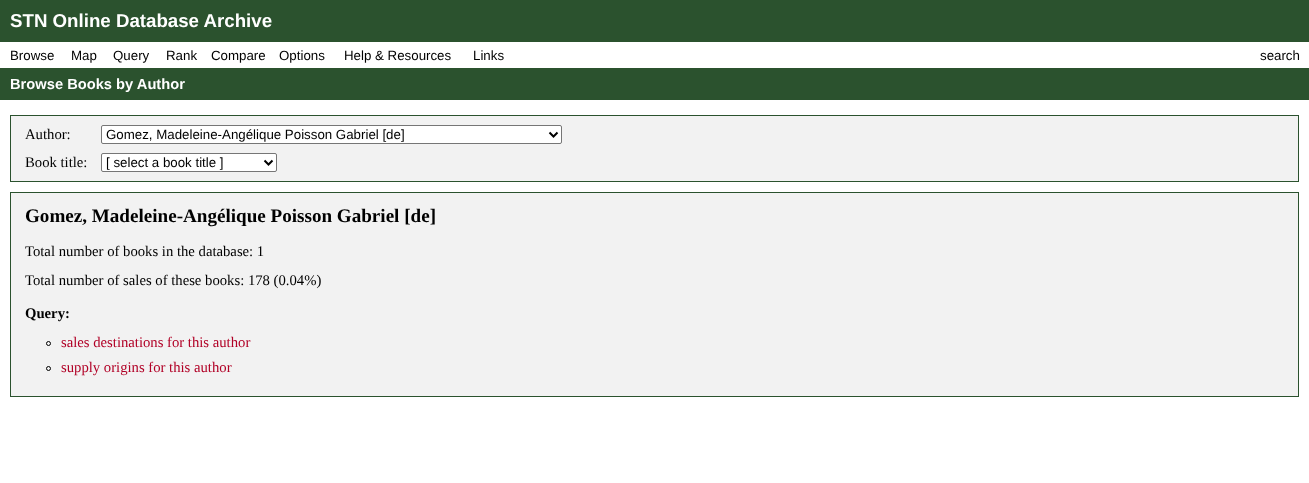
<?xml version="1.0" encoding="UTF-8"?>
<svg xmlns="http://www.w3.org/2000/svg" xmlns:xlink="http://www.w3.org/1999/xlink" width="1309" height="483">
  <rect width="100%" height="100%" fill="#ffffff" />
  <rect width="1309" height="42" fill="#2b522e" />
  <rect y="68" width="1309" height="32" fill="#2b522e" />
  <rect x="10.5" y="115.5" width="1288" height="66" fill="#f2f2f2" stroke="#2b522e" />
  <rect x="101.5" y="125.5" width="460" height="18" rx="1.5" fill="#ffffff" stroke="#767676" />
  <path d="M 549.5 132.5 l 4 4 l 4 -4" fill="none" stroke="#000000" stroke-width="2" />
  <rect x="101.5" y="153.5" width="175" height="18" rx="1.5" fill="#ffffff" stroke="#767676" />
  <path d="M 264.5 160.5 l 4 4 l 4 -4" fill="none" stroke="#000000" stroke-width="2" />
  <rect x="10.5" y="192.5" width="1288" height="204" fill="#f2f2f2" stroke="#2b522e" />
  <circle cx="48.5" cy="343.5" r="2" fill="none" stroke="#000000" />
  <circle cx="48.5" cy="368.5" r="2" fill="none" stroke="#000000" />
  <text x="10" y="27" style="font-family: Liberation Sans; font-size: 18.7px; font-weight: bold; fill: #ffffff">STN Online Database Archive</text>
  <text x="10" y="60" style="font-family: Liberation Sans; font-size: 13.3px; fill: #000000">Browse</text>
  <text x="71" y="60" style="font-family: Liberation Sans; font-size: 13.3px; fill: #000000">Map</text>
  <text x="113" y="60" style="font-family: Liberation Sans; font-size: 13.3px; fill: #000000">Query</text>
  <text x="166" y="60" style="font-family: Liberation Sans; font-size: 13.3px; fill: #000000">Rank</text>
  <text x="211" y="60" style="font-family: Liberation Sans; font-size: 13.3px; fill: #000000">Compare</text>
  <text x="279" y="60" style="font-family: Liberation Sans; font-size: 13.3px; fill: #000000">Options</text>
  <text x="344" y="60" style="font-family: Liberation Sans; font-size: 13.3px; fill: #000000">Help &amp; Resources</text>
  <text x="473" y="60" style="font-family: Liberation Sans; font-size: 13.3px; fill: #000000">Links</text>
  <text x="1260" y="60" style="font-family: Liberation Sans; font-size: 13.3px; fill: #000000">search</text>
  <text x="10" y="89" style="font-family: Liberation Sans; font-size: 14.7px; font-weight: bold; fill: #ffffff">Browse Books by Author</text>
  <text x="25" y="139" style="font-family: Liberation Serif; font-size: 14.7px; fill: #000000">Author:</text>
  <text x="106" y="139" style="font-family: Liberation Sans; font-size: 13.3px; fill: #000000">Gomez, Madeleine-Angélique Poisson Gabriel [de]</text>
  <text x="25" y="167" style="font-family: Liberation Serif; font-size: 14.7px; fill: #000000">Book title:</text>
  <text x="106" y="167" style="font-family: Liberation Sans; font-size: 13.3px; fill: #000000">[ select a book title ]</text>
  <text x="25" y="222" style="font-family: Liberation Serif; font-size: 19.1px; font-weight: bold; fill: #000000">Gomez, Madeleine-Angélique Poisson Gabriel [de]</text>
  <text x="25" y="256" style="font-family: Liberation Serif; font-size: 14.7px; fill: #000000">Total number of books in the database: 1</text>
  <text x="25" y="285" style="font-family: Liberation Serif; font-size: 14.7px; fill: #000000">Total number of sales of these books: 178 (0.04%)</text>
  <text x="25" y="318" style="font-family: Liberation Serif; font-size: 14.7px; font-weight: bold; fill: #000000">Query:</text>
  <text x="61" y="347" style="font-family: Liberation Serif; font-size: 14.7px; fill: #b10026">sales destinations for this author</text>
  <text x="61" y="372" style="font-family: Liberation Serif; font-size: 14.7px; fill: #b10026">supply origins for this author</text>
</svg>
